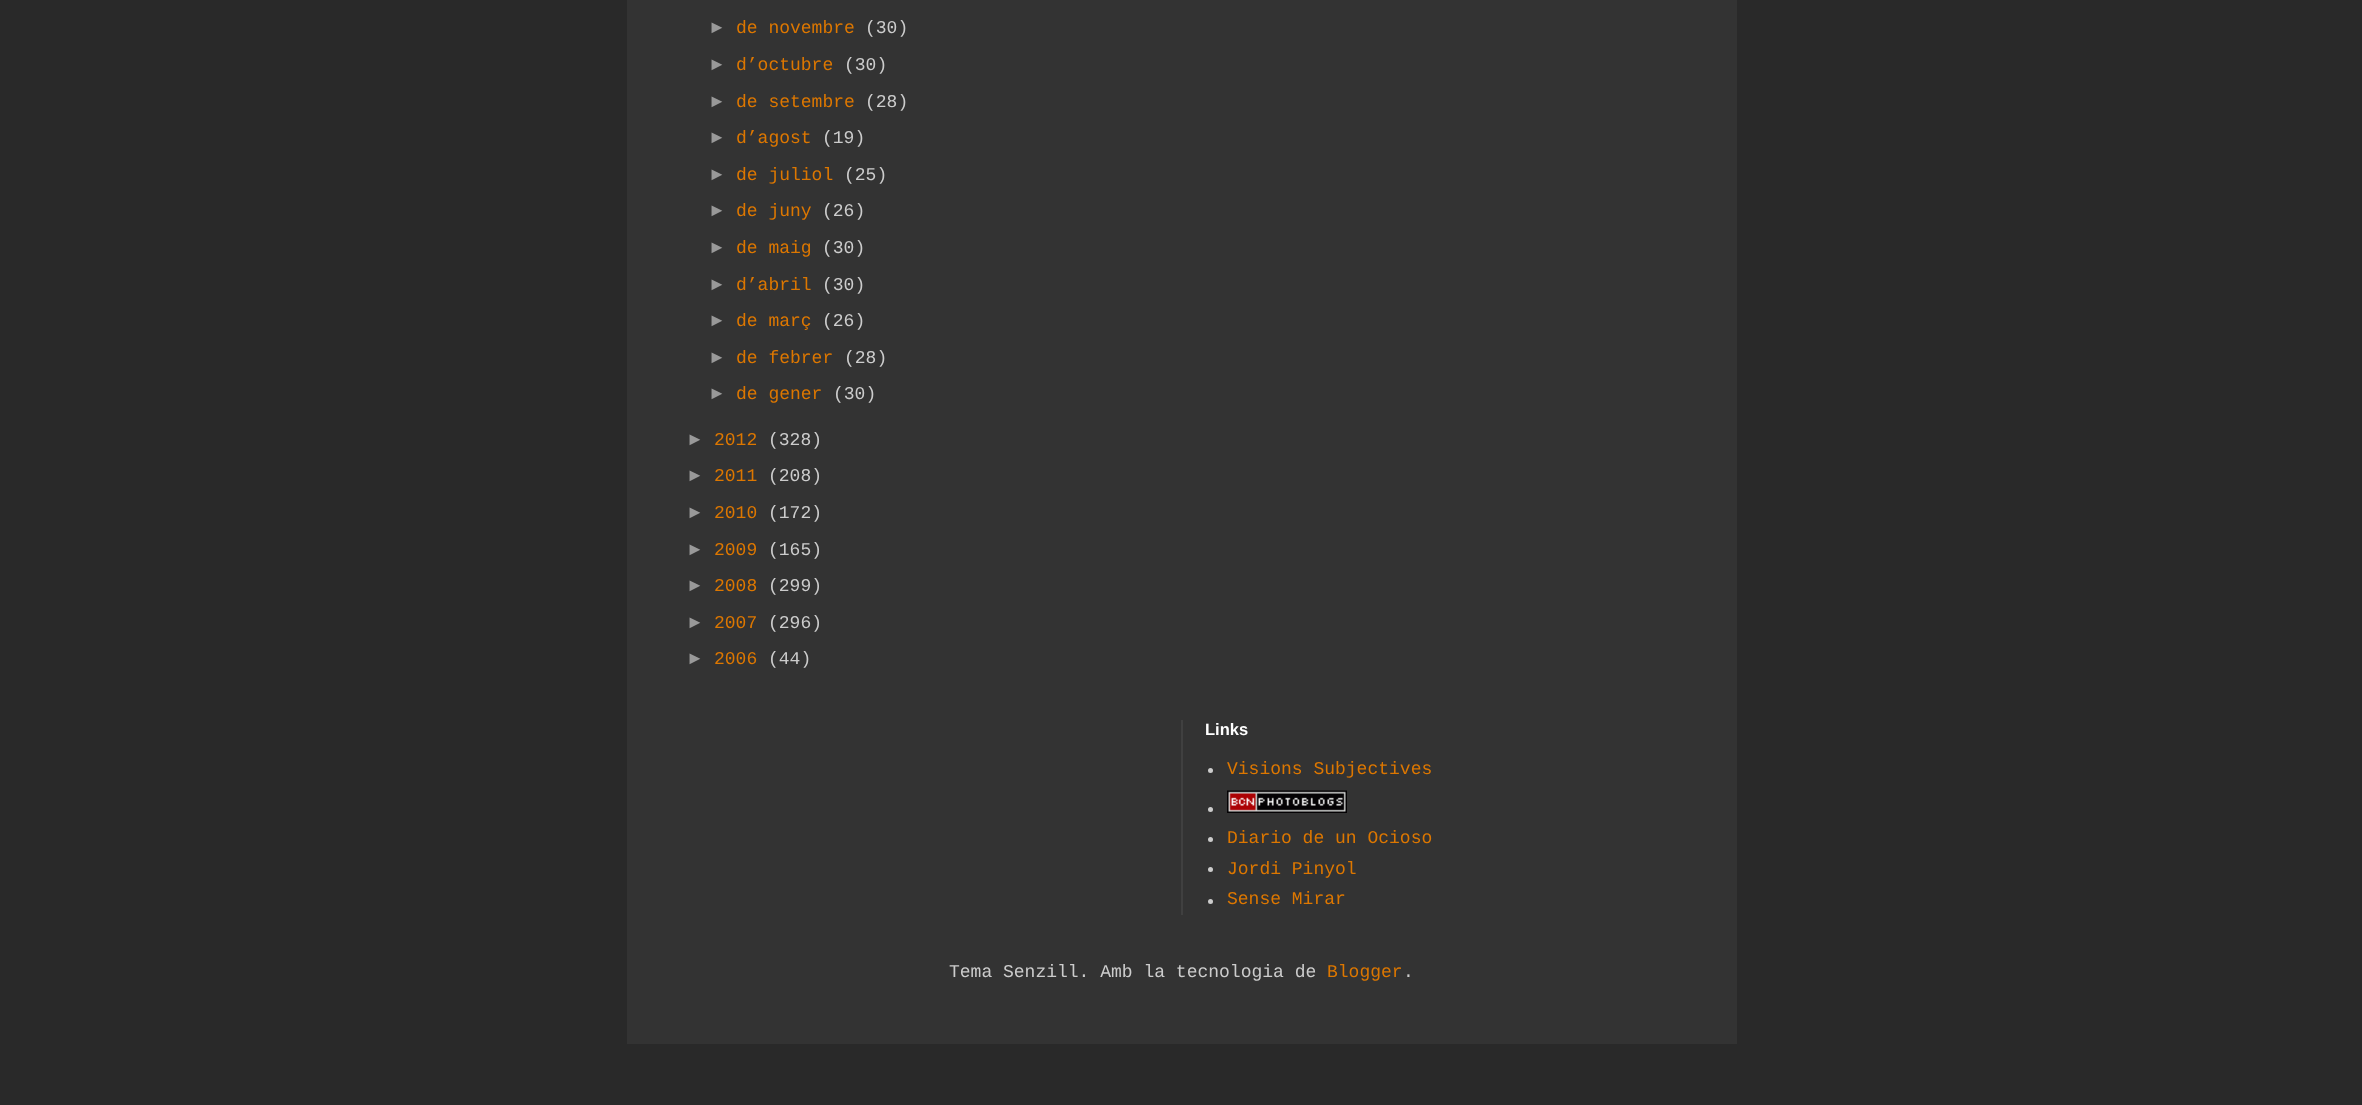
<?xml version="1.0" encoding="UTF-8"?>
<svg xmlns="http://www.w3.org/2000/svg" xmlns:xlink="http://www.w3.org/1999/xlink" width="2362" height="1105">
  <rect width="100%" height="100%" fill="#292929" />
  <rect x="627" width="1110" height="1044" fill="#333333" />
  <rect x="1181" y="720" width="2" height="195" fill="#404040" />
  <circle cx="1210.5" cy="770.5" r="2.5" fill="#cccccc" />
  <circle cx="1210.5" cy="809.5" r="2.5" fill="#cccccc" />
  <image x="1227" y="790" width="120" height="23" xlink:href="image1.png" />
  <circle cx="1210.5" cy="839.5" r="2.5" fill="#cccccc" />
  <circle cx="1210.5" cy="869.5" r="2.5" fill="#cccccc" />
  <circle cx="1210.5" cy="901.5" r="2.5" fill="#cccccc" />
  <text x="708" y="33" style="font-family: Liberation Sans; font-size: 18px; fill: #999999">►</text>
  <text x="736" y="33" style="font-family: Liberation Mono; font-size: 18px; fill: #dd7700">de novembre</text>
  <text x="865" y="33" style="font-family: Liberation Mono; font-size: 18px; fill: #cccccc">(30)</text>
  <text x="708" y="70" style="font-family: Liberation Sans; font-size: 18px; fill: #999999">►</text>
  <text x="736" y="70" style="font-family: Liberation Mono; font-size: 18px; fill: #dd7700">d’octubre</text>
  <text x="844" y="70" style="font-family: Liberation Mono; font-size: 18px; fill: #cccccc">(30)</text>
  <text x="708" y="107" style="font-family: Liberation Sans; font-size: 18px; fill: #999999">►</text>
  <text x="736" y="107" style="font-family: Liberation Mono; font-size: 18px; fill: #dd7700">de setembre</text>
  <text x="865" y="107" style="font-family: Liberation Mono; font-size: 18px; fill: #cccccc">(28)</text>
  <text x="708" y="143" style="font-family: Liberation Sans; font-size: 18px; fill: #999999">►</text>
  <text x="736" y="143" style="font-family: Liberation Mono; font-size: 18px; fill: #dd7700">d’agost</text>
  <text x="822" y="143" style="font-family: Liberation Mono; font-size: 18px; fill: #cccccc">(19)</text>
  <text x="708" y="180" style="font-family: Liberation Sans; font-size: 18px; fill: #999999">►</text>
  <text x="736" y="180" style="font-family: Liberation Mono; font-size: 18px; fill: #dd7700">de juliol</text>
  <text x="844" y="180" style="font-family: Liberation Mono; font-size: 18px; fill: #cccccc">(25)</text>
  <text x="708" y="216" style="font-family: Liberation Sans; font-size: 18px; fill: #999999">►</text>
  <text x="736" y="216" style="font-family: Liberation Mono; font-size: 18px; fill: #dd7700">de juny</text>
  <text x="822" y="216" style="font-family: Liberation Mono; font-size: 18px; fill: #cccccc">(26)</text>
  <text x="708" y="253" style="font-family: Liberation Sans; font-size: 18px; fill: #999999">►</text>
  <text x="736" y="253" style="font-family: Liberation Mono; font-size: 18px; fill: #dd7700">de maig</text>
  <text x="822" y="253" style="font-family: Liberation Mono; font-size: 18px; fill: #cccccc">(30)</text>
  <text x="708" y="290" style="font-family: Liberation Sans; font-size: 18px; fill: #999999">►</text>
  <text x="736" y="290" style="font-family: Liberation Mono; font-size: 18px; fill: #dd7700">d’abril</text>
  <text x="822" y="290" style="font-family: Liberation Mono; font-size: 18px; fill: #cccccc">(30)</text>
  <text x="708" y="326" style="font-family: Liberation Sans; font-size: 18px; fill: #999999">►</text>
  <text x="736" y="326" style="font-family: Liberation Mono; font-size: 18px; fill: #dd7700">de març</text>
  <text x="822" y="326" style="font-family: Liberation Mono; font-size: 18px; fill: #cccccc">(26)</text>
  <text x="708" y="363" style="font-family: Liberation Sans; font-size: 18px; fill: #999999">►</text>
  <text x="736" y="363" style="font-family: Liberation Mono; font-size: 18px; fill: #dd7700">de febrer</text>
  <text x="844" y="363" style="font-family: Liberation Mono; font-size: 18px; fill: #cccccc">(28)</text>
  <text x="708" y="399" style="font-family: Liberation Sans; font-size: 18px; fill: #999999">►</text>
  <text x="736" y="399" style="font-family: Liberation Mono; font-size: 18px; fill: #dd7700">de gener</text>
  <text x="833" y="399" style="font-family: Liberation Mono; font-size: 18px; fill: #cccccc">(30)</text>
  <text x="686" y="445" style="font-family: Liberation Sans; font-size: 18px; fill: #999999">►</text>
  <text x="714" y="445" style="font-family: Liberation Mono; font-size: 18px; fill: #dd7700">2012</text>
  <text x="768" y="445" style="font-family: Liberation Mono; font-size: 18px; fill: #cccccc">(328)</text>
  <text x="686" y="481" style="font-family: Liberation Sans; font-size: 18px; fill: #999999">►</text>
  <text x="714" y="481" style="font-family: Liberation Mono; font-size: 18px; fill: #dd7700">2011</text>
  <text x="768" y="481" style="font-family: Liberation Mono; font-size: 18px; fill: #cccccc">(208)</text>
  <text x="686" y="518" style="font-family: Liberation Sans; font-size: 18px; fill: #999999">►</text>
  <text x="714" y="518" style="font-family: Liberation Mono; font-size: 18px; fill: #dd7700">2010</text>
  <text x="768" y="518" style="font-family: Liberation Mono; font-size: 18px; fill: #cccccc">(172)</text>
  <text x="686" y="555" style="font-family: Liberation Sans; font-size: 18px; fill: #999999">►</text>
  <text x="714" y="555" style="font-family: Liberation Mono; font-size: 18px; fill: #dd7700">2009</text>
  <text x="768" y="555" style="font-family: Liberation Mono; font-size: 18px; fill: #cccccc">(165)</text>
  <text x="686" y="591" style="font-family: Liberation Sans; font-size: 18px; fill: #999999">►</text>
  <text x="714" y="591" style="font-family: Liberation Mono; font-size: 18px; fill: #dd7700">2008</text>
  <text x="768" y="591" style="font-family: Liberation Mono; font-size: 18px; fill: #cccccc">(299)</text>
  <text x="686" y="628" style="font-family: Liberation Sans; font-size: 18px; fill: #999999">►</text>
  <text x="714" y="628" style="font-family: Liberation Mono; font-size: 18px; fill: #dd7700">2007</text>
  <text x="768" y="628" style="font-family: Liberation Mono; font-size: 18px; fill: #cccccc">(296)</text>
  <text x="686" y="664" style="font-family: Liberation Sans; font-size: 18px; fill: #999999">►</text>
  <text x="714" y="664" style="font-family: Liberation Mono; font-size: 18px; fill: #dd7700">2006</text>
  <text x="768" y="664" style="font-family: Liberation Mono; font-size: 18px; fill: #cccccc">(44)</text>
  <text x="1205" y="735" style="font-family: Liberation Sans; font-size: 16.5px; font-weight: bold; fill: #ffffff">Links</text>
  <text x="1227" y="774" style="font-family: Liberation Mono; font-size: 18px; fill: #dd7700">Visions Subjectives</text>
  <text x="1227" y="843" style="font-family: Liberation Mono; font-size: 18px; fill: #dd7700">Diario de un Ocioso</text>
  <text x="1227" y="874" style="font-family: Liberation Mono; font-size: 18px; fill: #dd7700">Jordi Pinyol</text>
  <text x="1227" y="904" style="font-family: Liberation Mono; font-size: 18px; fill: #dd7700">Sense Mirar</text>
  <text x="949" y="977" style="font-family: Liberation Mono; font-size: 18px; fill: #cccccc">Tema Senzill. Amb la tecnologia de</text>
  <text x="1327" y="977" style="font-family: Liberation Mono; font-size: 18px; fill: #dd7700">Blogger</text>
  <text x="1403" y="977" style="font-family: Liberation Mono; font-size: 18px; fill: #cccccc">.</text>
</svg>
